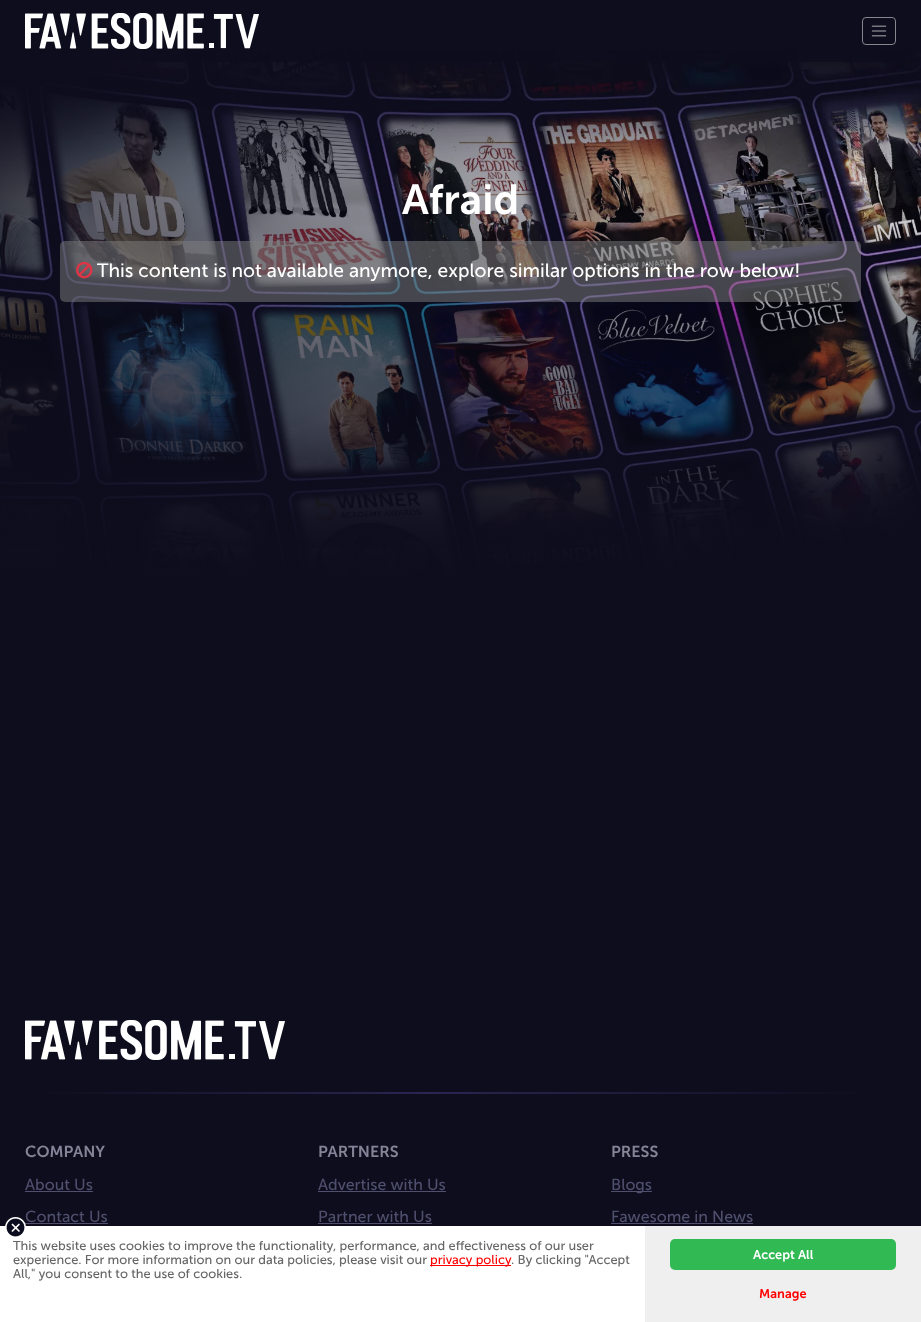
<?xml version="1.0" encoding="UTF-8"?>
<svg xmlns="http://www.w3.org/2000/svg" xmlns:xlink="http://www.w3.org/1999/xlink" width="921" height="1322">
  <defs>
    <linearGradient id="g1" gradientUnits="userSpaceOnUse" x1="460" y1="50" x2="461" y2="694"><stop offset="0.1" stop-color="#0d0d1e" stop-opacity="0" /><stop offset="1" stop-color="#0d0d1e" /></linearGradient>
    <linearGradient id="g2" gradientUnits="userSpaceOnUse" x1="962" y1="281" x2="-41" y2="457"><stop offset="0.1" stop-color="#0d0d1e" stop-opacity="0" /><stop offset="1" stop-color="#0d0d1e" stop-opacity="0.7" /></linearGradient>
    <linearGradient id="g3" gradientUnits="userSpaceOnUse" x1="25" y1="1093" x2="880" y2="1093"><stop offset="0" stop-color="#0d0d1d" /><stop offset="0.47" stop-color="#272751" /><stop offset="1" stop-color="#0d0d1d" /></linearGradient>
  </defs>
  <rect width="100%" height="100%" fill="#0d0d1d" />
  <image x="0" y="50" width="921" height="528" xlink:href="image3.png" />
  <rect y="126" width="921" height="452" fill="url(#g1)" />
  <rect y="50" width="851" height="498" fill="url(#g2)" />
  <rect x="142" y="50" width="774" height="12" fill="#0d0d1d" fill-opacity="0.85" />
  <image x="25" y="13" width="234" height="36" xlink:href="image1.png" />
  <rect x="862.5" y="17.5" width="33" height="27" rx="3.5" fill="none" stroke="#86868e" />
  <image x="871" y="25" width="16" height="12" xlink:href="image2.png" />
  <rect x="60" y="241" width="801" height="61" rx="5" fill="#808080" fill-opacity="0.5" />
  <image x="76" y="261" width="17" height="18" xlink:href="image4.png" />
  <image x="25" y="1020" width="260" height="40" xlink:href="image5.png" />
  <rect x="44" y="1092" width="814" height="2" fill="url(#g3)" />
  <rect x="25" y="1191" width="68" height="1" fill="#4f4f6e" />
  <rect x="25" y="1223" width="83" height="1" fill="#4f4f6e" />
  <rect x="318" y="1191" width="128" height="1" fill="#4f4f6e" />
  <rect x="318" y="1223" width="114" height="1" fill="#4f4f6e" />
  <rect x="611" y="1191" width="41" height="1" fill="#4f4f6e" />
  <rect x="611" y="1223" width="142" height="1" fill="#4f4f6e" />
  <rect y="1226" width="645" height="96" fill="#ffffff" />
  <rect x="430" y="1265" width="81" height="1" fill="#ff0000" />
  <rect x="645" y="1226" width="276" height="96" fill="#efefef" />
  <rect x="670" y="1239" width="226" height="31" rx="5" fill="#31ba53" />
  <text x="402" y="214" style="font-family: 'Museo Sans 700'; font-size: 42px; font-weight: 600; fill: #ffffff">Afraid</text>
  <text x="97" y="277" style="font-family: 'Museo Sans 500'; font-size: 19.2px; fill: #ffffff">This content is not available anymore, explore similar options in the row below!</text>
  <text x="25" y="1157" style="font-family: 'Museo Sans 700'; font-size: 16px; font-weight: 600; fill: #848397">COMPANY</text>
  <text x="25" y="1190" style="font-family: 'Museo Sans 500'; font-size: 16px; fill: #4f4f6e">About Us</text>
  <text x="25" y="1222" style="font-family: 'Museo Sans 500'; font-size: 16px; fill: #4f4f6e">Contact Us</text>
  <text x="318" y="1157" style="font-family: 'Museo Sans 700'; font-size: 16px; font-weight: 600; fill: #848397">PARTNERS</text>
  <text x="318" y="1190" style="font-family: 'Museo Sans 500'; font-size: 16px; fill: #4f4f6e">Advertise with Us</text>
  <text x="318" y="1222" style="font-family: 'Museo Sans 500'; font-size: 16px; fill: #4f4f6e">Partner with Us</text>
  <text x="611" y="1157" style="font-family: 'Museo Sans 700'; font-size: 16px; font-weight: 600; fill: #848397">PRESS</text>
  <text x="611" y="1190" style="font-family: 'Museo Sans 500'; font-size: 16px; fill: #4f4f6e">Blogs</text>
  <text x="611" y="1222" style="font-family: 'Museo Sans 500'; font-size: 16px; fill: #4f4f6e">Fawesome in News</text>
  <image x="5" y="1217" width="21" height="20" xlink:href="image6.png" />
  <text x="13" y="1250" style="font-family: 'Museo Sans 500'; font-size: 12.8px; fill: #666666">This website uses cookies to improve the functionality, performance, and effectiveness of our user</text>
  <text x="13" y="1264" style="font-family: 'Museo Sans 500'; font-size: 12.8px; fill: #666666">experience. For more information on our data policies, please visit our</text>
  <text x="430" y="1264" style="font-family: 'Museo Sans 500'; font-size: 12.8px; fill: #ff0000">privacy policy</text>
  <text x="511" y="1264" style="font-family: 'Museo Sans 500'; font-size: 12.8px; fill: #666666">. By clicking "Accept</text>
  <text x="13" y="1278" style="font-family: 'Museo Sans 500'; font-size: 12.8px; fill: #666666">All," you consent to the use of cookies.</text>
  <text x="753" y="1259" style="font-family: 'Museo Sans 700'; font-size: 12.8px; font-weight: 600; fill: #ffffff">Accept All</text>
  <text x="759" y="1298" style="font-family: 'Museo Sans 700'; font-size: 12.8px; font-weight: 600; fill: #ff0000">Manage</text>
</svg>
